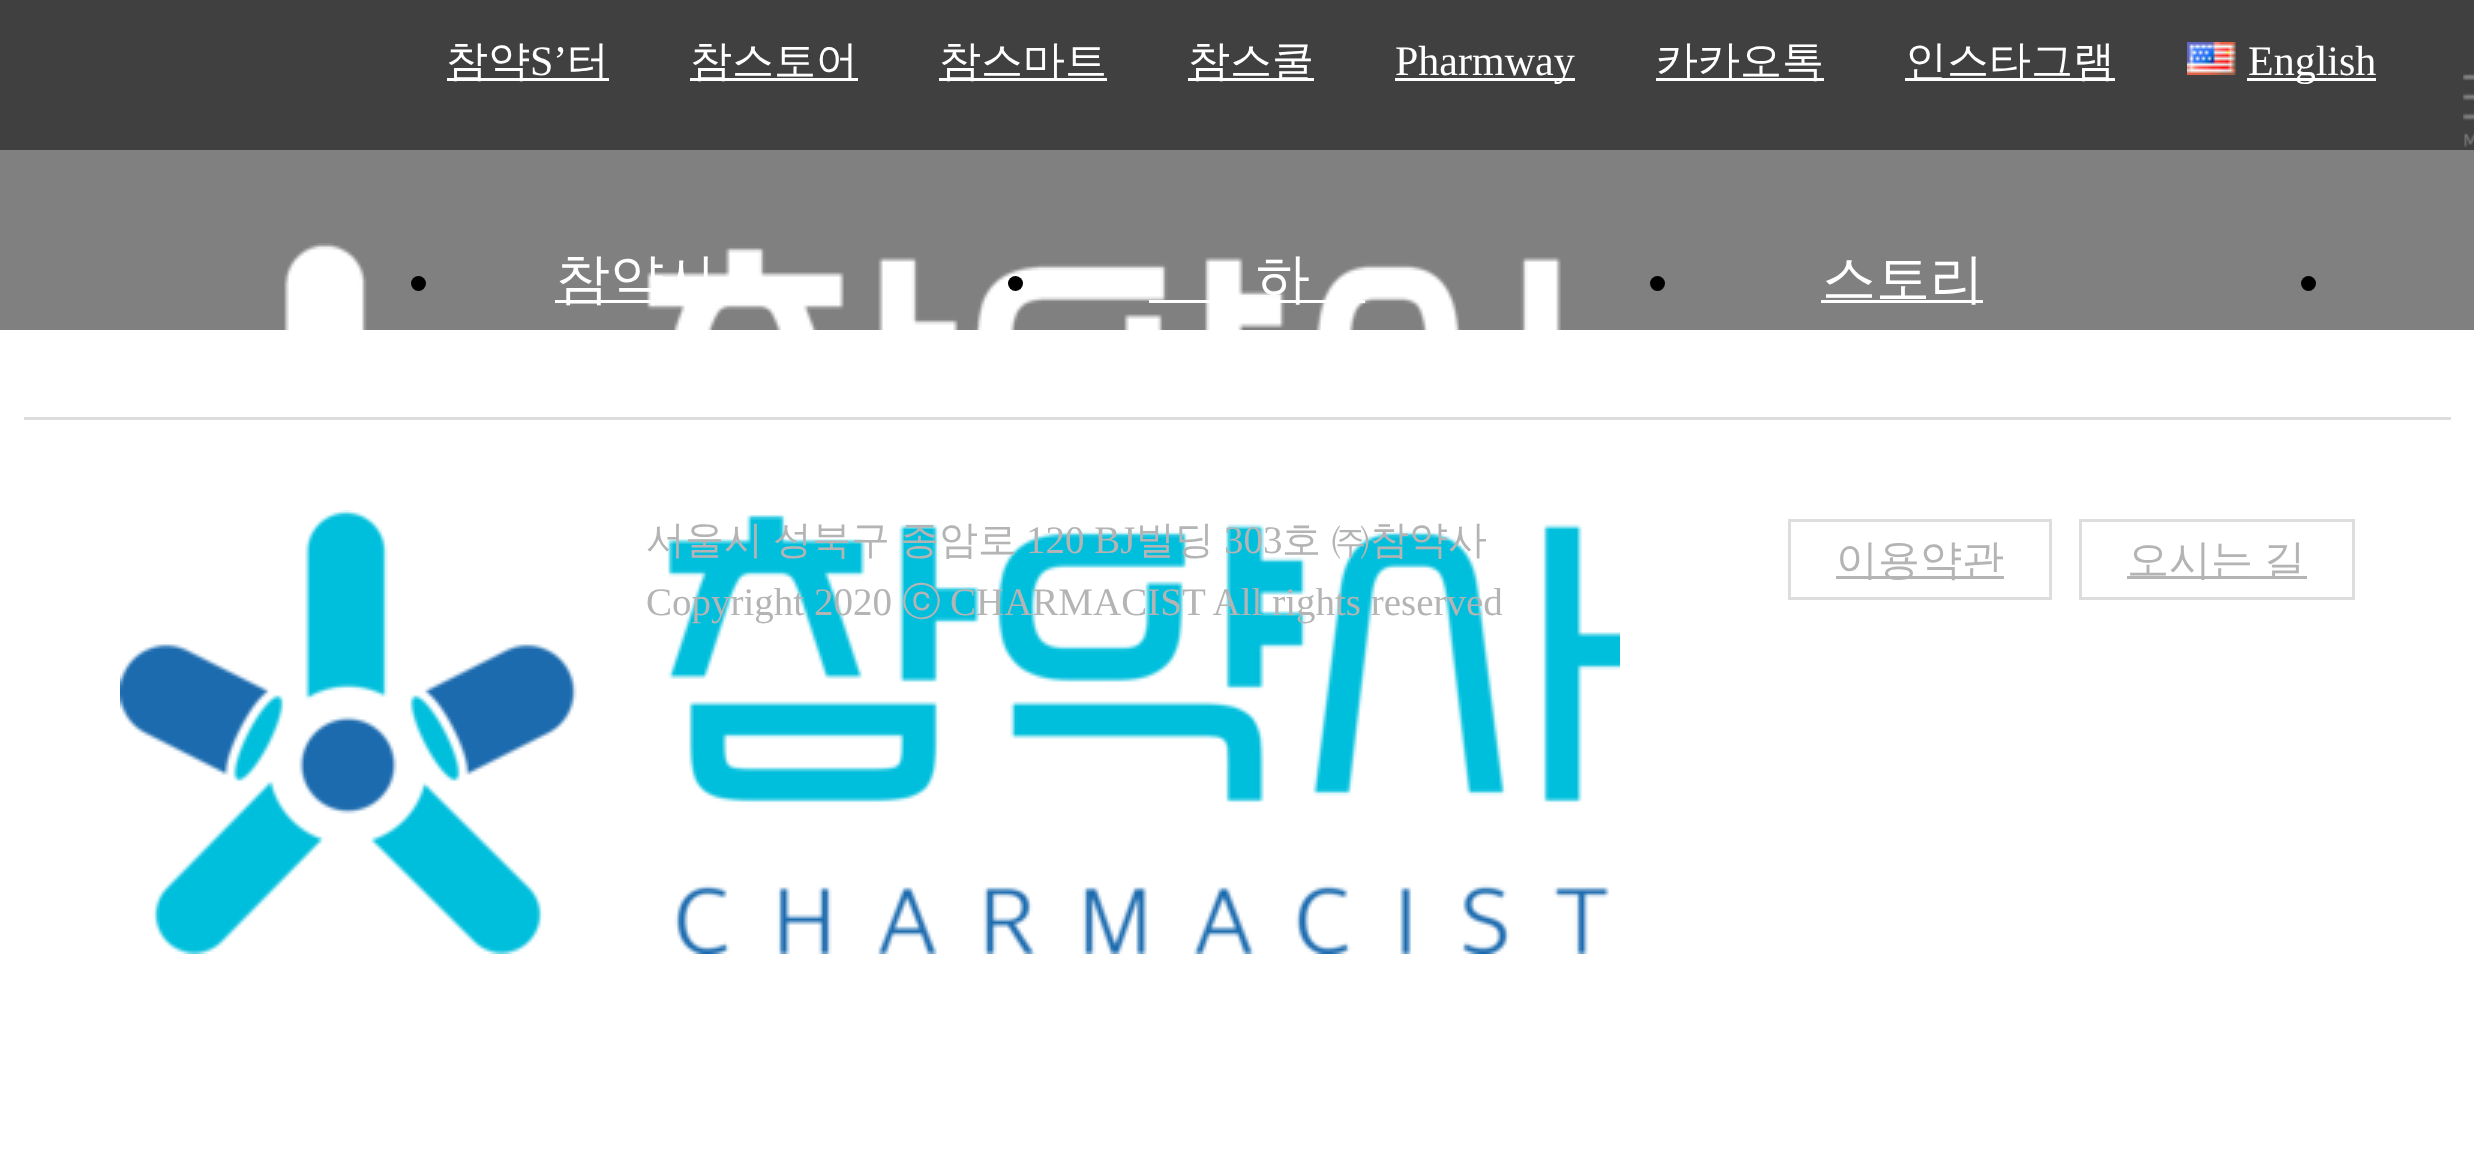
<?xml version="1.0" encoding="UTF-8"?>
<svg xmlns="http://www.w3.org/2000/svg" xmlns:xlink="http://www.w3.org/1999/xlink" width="2474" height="1170">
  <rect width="100%" height="100%" fill="#ffffff" />
  <rect y="150" width="2474" height="180" fill="#808080" />
  <rect width="2474" height="150" fill="#404040" />
  <rect x="447" y="78" width="162" height="3" fill="#ffffff" />
  <rect x="690" y="78" width="168" height="3" fill="#ffffff" />
  <rect x="939" y="78" width="168" height="3" fill="#ffffff" />
  <rect x="1188" y="78" width="126" height="3" fill="#ffffff" />
  <rect x="1395" y="78" width="180" height="3" fill="#ffffff" />
  <rect x="1656" y="78" width="168" height="3" fill="#ffffff" />
  <rect x="1905" y="78" width="210" height="3" fill="#ffffff" />
  <image x="2187" y="42" width="49" height="33" xlink:href="image1.png" />
  <rect x="2247" y="78" width="129" height="3" fill="#ffffff" />
  <image x="2463" y="74" width="11" height="74" xlink:href="image2.png" />
  <image x="284" y="243" width="1277" height="87" xlink:href="image3.png" />
  <circle cx="418.5" cy="283.5" r="7.5" fill="#000000" />
  <rect x="555" y="300" width="97" height="3" fill="#ffffff" />
  <circle cx="1015.5" cy="283.5" r="7.5" fill="#000000" />
  <rect x="1149" y="300" width="216" height="3" fill="#ffffff" />
  <circle cx="1657.5" cy="283.5" r="7.5" fill="#000000" />
  <rect x="1821" y="300" width="162" height="3" fill="#ffffff" />
  <circle cx="2308.5" cy="283.5" r="7.5" fill="#000000" />
  <rect x="24" y="417" width="2427" height="3" fill="#dddddd" />
  <image x="120" y="510" width="1500" height="444" xlink:href="image4.png" />
  <rect x="1789.5" y="520.5" width="261" height="78" fill="none" stroke="#dddddd" stroke-width="3" />
  <rect x="1836" y="576" width="168" height="3" fill="#b4b4b4" />
  <rect x="2080.5" y="520.5" width="273" height="78" fill="none" stroke="#dddddd" stroke-width="3" />
  <rect x="2127" y="576" width="180" height="3" fill="#b4b4b4" />
  <text x="446" y="75" style="font-family: WenQuanYi Zen Hei; font-size: 42px; font-weight: 500; fill: #ffffff">참약</text>
  <text x="530" y="75" style="font-family: Liberation Serif; font-size: 42px; fill: #ffffff">S’</text>
  <text x="567" y="75" style="font-family: WenQuanYi Zen Hei; font-size: 42px; font-weight: 500; fill: #ffffff">터</text>
  <text x="690" y="75" style="font-family: WenQuanYi Zen Hei; font-size: 42px; font-weight: 500; fill: #ffffff">참스토어</text>
  <text x="939" y="75" style="font-family: WenQuanYi Zen Hei; font-size: 42px; font-weight: 500; fill: #ffffff">참스마트</text>
  <text x="1188" y="75" style="font-family: WenQuanYi Zen Hei; font-size: 42px; font-weight: 500; fill: #ffffff">참스쿨</text>
  <text x="1395" y="75" style="font-family: Liberation Serif; font-size: 42px; fill: #ffffff">Pharmway</text>
  <text x="1656" y="75" style="font-family: WenQuanYi Zen Hei; font-size: 42px; font-weight: 500; fill: #ffffff">카카오톡</text>
  <text x="1905" y="75" style="font-family: WenQuanYi Zen Hei; font-size: 42px; font-weight: 500; fill: #ffffff">인스타그램</text>
  <text x="2248" y="75" style="font-family: Liberation Serif; font-size: 42px; fill: #ffffff">English</text>
  <text x="556" y="297" style="font-family: WenQuanYi Zen Hei; font-size: 54px; font-weight: 500; fill: #ffffff">참약사</text>
  <text x="1256" y="297" style="font-family: WenQuanYi Zen Hei; font-size: 54px; font-weight: 500; fill: #ffffff">하</text>
  <text x="1822" y="297" style="font-family: WenQuanYi Zen Hei; font-size: 54px; font-weight: 500; fill: #ffffff">스토리</text>
  <text x="646" y="553" style="font-family: WenQuanYi Zen Hei; font-size: 39px; font-weight: 500; fill: #b4b4b4">서울시</text>
  <text x="773" y="553" style="font-family: WenQuanYi Zen Hei; font-size: 39px; font-weight: 500; fill: #b4b4b4">성북구</text>
  <text x="900" y="553" style="font-family: WenQuanYi Zen Hei; font-size: 39px; font-weight: 500; fill: #b4b4b4">종암로</text>
  <text x="1026" y="553" style="font-family: Liberation Serif; font-size: 39px; fill: #b4b4b4">120 BJ</text>
  <text x="1136" y="553" style="font-family: WenQuanYi Zen Hei; font-size: 39px; font-weight: 500; fill: #b4b4b4">빌딩</text>
  <text x="1224" y="553" style="font-family: Liberation Serif; font-size: 39px; fill: #b4b4b4">303</text>
  <text x="1282" y="553" style="font-family: WenQuanYi Zen Hei; font-size: 39px; font-weight: 500; fill: #b4b4b4">호</text>
  <text x="1331" y="553" style="font-family: WenQuanYi Zen Hei; font-size: 39px; font-weight: 500; fill: #b4b4b4">㈜참약사</text>
  <text x="646" y="615" style="font-family: Liberation Serif; font-size: 39px; fill: #b4b4b4">Copyright 2020</text>
  <text x="902" y="615" style="font-family: WenQuanYi Zen Hei; font-size: 39px; font-weight: 500; fill: #b4b4b4">ⓒ</text>
  <text x="950" y="615" style="font-family: Liberation Serif; font-size: 39px; fill: #b4b4b4">CHARMACIST All rights reserved</text>
  <text x="1836" y="574" style="font-family: WenQuanYi Zen Hei; font-size: 42px; font-weight: 500; fill: #b4b4b4">이용약관</text>
  <text x="2127" y="574" word-spacing="-2" style="font-family: WenQuanYi Zen Hei; font-size: 42px; font-weight: 500; fill: #b4b4b4">오시는 길</text>
</svg>
